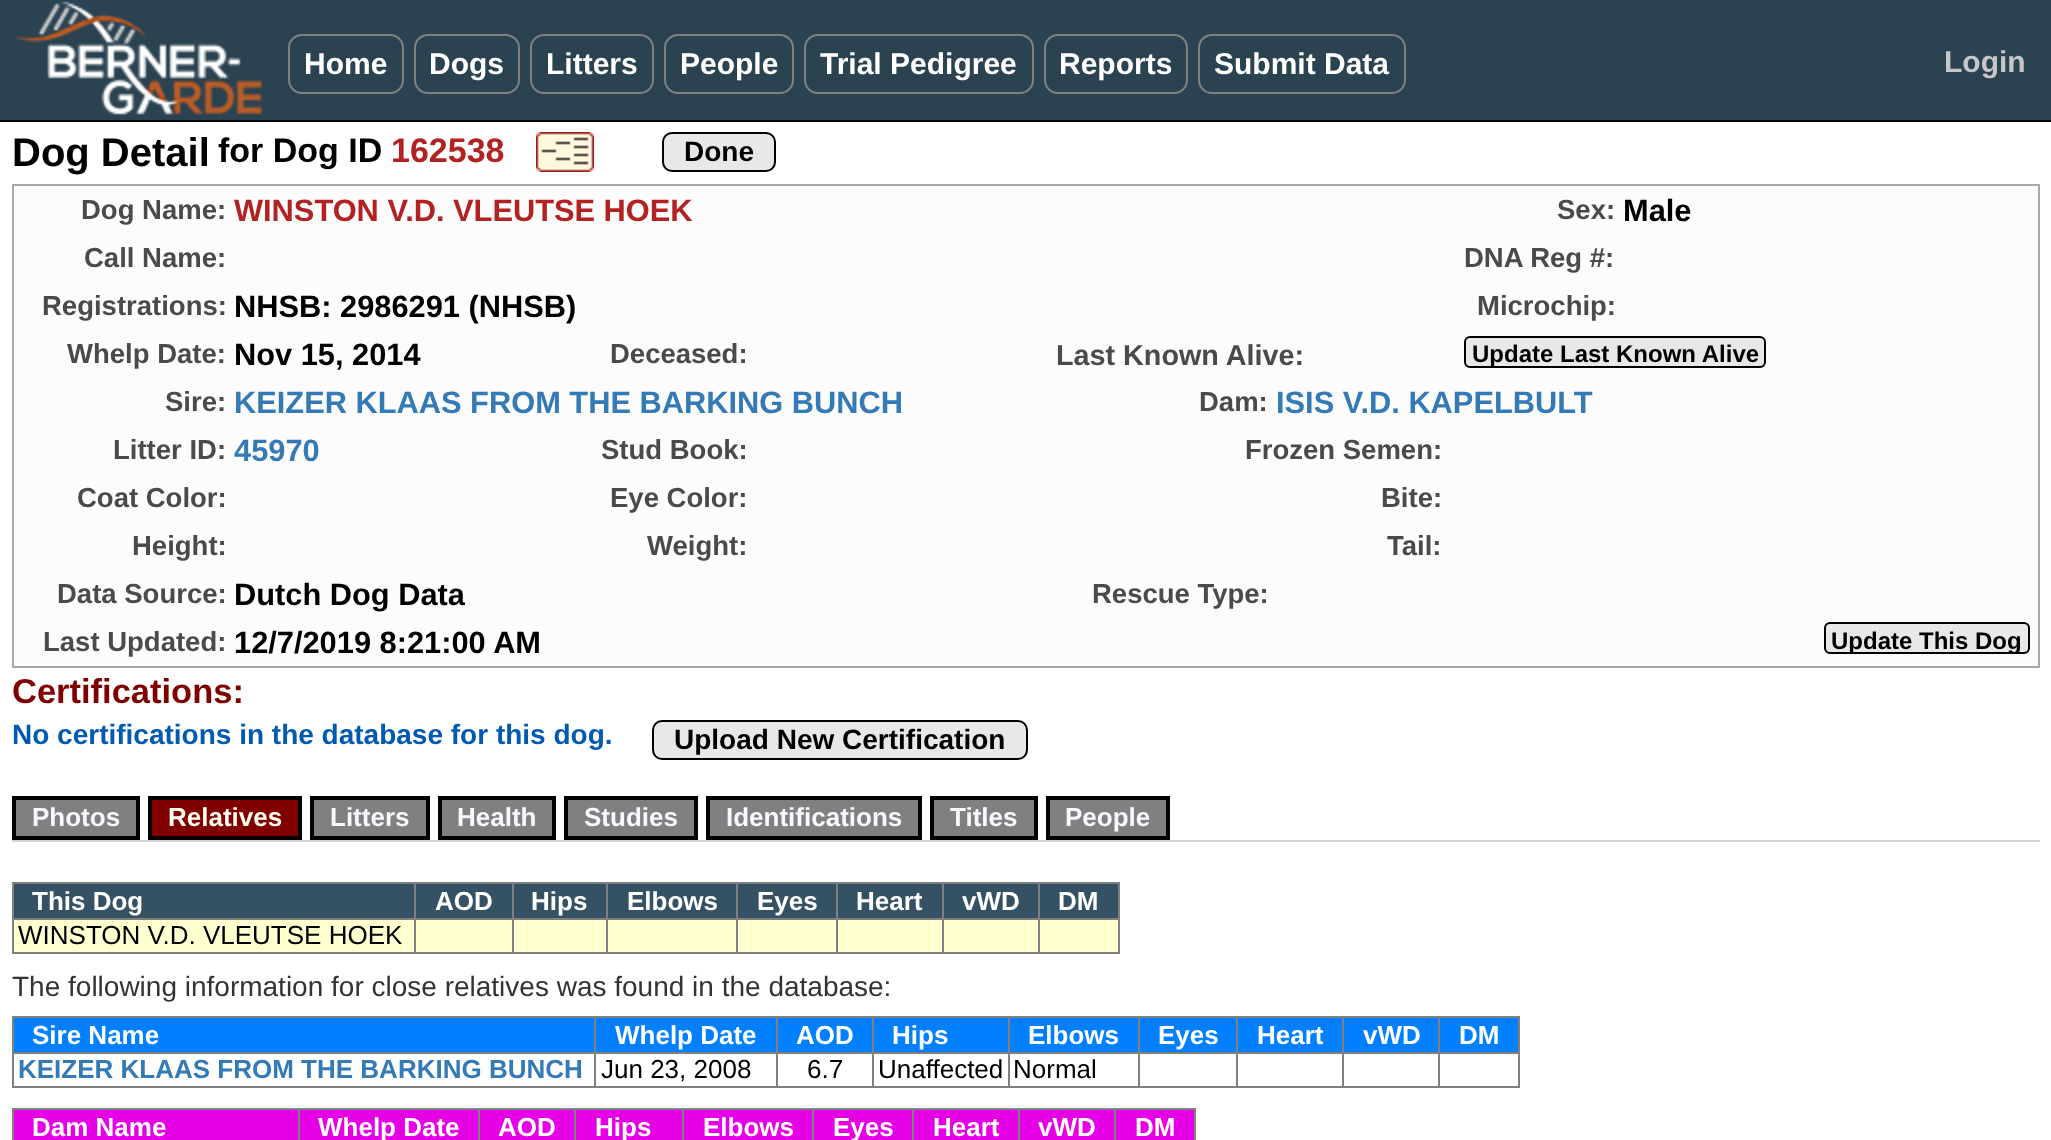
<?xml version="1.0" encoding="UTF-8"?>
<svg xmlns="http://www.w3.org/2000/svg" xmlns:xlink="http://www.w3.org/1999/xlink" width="2051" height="1140">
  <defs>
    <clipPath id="clip1"><rect x="1466" y="338" width="298" height="28" rx="4" /></clipPath>
    <clipPath id="clip2"><rect x="1826" y="624" width="202" height="28" rx="4" /></clipPath>
  </defs>
  <rect width="100%" height="100%" fill="#ffffff" />
  <rect width="2051" height="120" fill="#2b4351" />
  <rect y="120" width="2051" height="2" fill="#080808" />
  <image x="14" y="1" width="249" height="114" xlink:href="image1.png" />
  <rect x="289" y="35" width="114" height="58" rx="13" fill="none" stroke="#808080" stroke-width="2" />
  <rect x="415" y="35" width="104" height="58" rx="13" fill="none" stroke="#808080" stroke-width="2" />
  <rect x="531" y="35" width="122" height="58" rx="13" fill="none" stroke="#808080" stroke-width="2" />
  <rect x="665" y="35" width="128" height="58" rx="13" fill="none" stroke="#808080" stroke-width="2" />
  <rect x="805" y="35" width="228" height="58" rx="13" fill="none" stroke="#808080" stroke-width="2" />
  <rect x="1045" y="35" width="142" height="58" rx="13" fill="none" stroke="#808080" stroke-width="2" />
  <rect x="1199" y="35" width="206" height="58" rx="13" fill="none" stroke="#808080" stroke-width="2" />
  <image x="536" y="132" width="58" height="40" xlink:href="image2.png" />
  <rect x="663" y="133" width="112" height="38" rx="9" fill="#e8e8e8" stroke="#000000" stroke-width="2" />
  <rect x="13" y="185" width="2026" height="482" fill="#fcfcfc" stroke="#a9a9a9" stroke-width="2" />
  <rect x="1465" y="337" width="300" height="30" rx="5" fill="#e8e8e8" stroke="#000000" stroke-width="2" />
  <rect x="1825" y="623" width="204" height="30" rx="5" fill="#e8e8e8" stroke="#000000" stroke-width="2" />
  <rect x="653" y="721" width="374" height="38" rx="9" fill="#e8e8e8" stroke="#000000" stroke-width="2" />
  <rect x="14" y="798" width="124" height="40" fill="#808080" stroke="#000000" stroke-width="4" />
  <rect x="150" y="798" width="150" height="40" fill="#800000" stroke="#000000" stroke-width="4" />
  <rect x="312" y="798" width="116" height="40" fill="#808080" stroke="#000000" stroke-width="4" />
  <rect x="440" y="798" width="114" height="40" fill="#808080" stroke="#000000" stroke-width="4" />
  <rect x="566" y="798" width="130" height="40" fill="#808080" stroke="#000000" stroke-width="4" />
  <rect x="708" y="798" width="212" height="40" fill="#808080" stroke="#000000" stroke-width="4" />
  <rect x="932" y="798" width="104" height="40" fill="#808080" stroke="#000000" stroke-width="4" />
  <rect x="1048" y="798" width="120" height="40" fill="#808080" stroke="#000000" stroke-width="4" />
  <rect x="12" y="840" width="2028" height="2" fill="#d3d3d3" />
  <rect x="12" y="882" width="1108" height="2" fill="#808080" />
  <rect x="1118" y="882" width="2" height="72" fill="#808080" />
  <rect x="12" y="952" width="1108" height="2" fill="#808080" />
  <rect x="12" y="882" width="2" height="72" fill="#808080" />
  <rect x="14" y="884" width="400" height="34" fill="#355264" />
  <rect x="416" y="884" width="96" height="34" fill="#355264" />
  <rect x="1038" y="918" width="82" height="2" fill="#808080" />
  <rect x="14" y="920" width="1104" height="32" fill="#ffffcf" />
  <rect x="1038" y="918" width="2" height="36" fill="#808080" />
  <rect x="942" y="918" width="98" height="2" fill="#808080" />
  <rect x="942" y="918" width="2" height="36" fill="#808080" />
  <rect x="836" y="918" width="108" height="2" fill="#808080" />
  <rect x="836" y="918" width="2" height="36" fill="#808080" />
  <rect x="736" y="918" width="102" height="2" fill="#808080" />
  <rect x="736" y="918" width="2" height="36" fill="#808080" />
  <rect x="606" y="918" width="132" height="2" fill="#808080" />
  <rect x="606" y="918" width="2" height="36" fill="#808080" />
  <rect x="512" y="918" width="96" height="2" fill="#808080" />
  <rect x="512" y="918" width="2" height="36" fill="#808080" />
  <rect x="414" y="918" width="100" height="2" fill="#808080" />
  <rect x="414" y="918" width="2" height="36" fill="#808080" />
  <rect x="12" y="918" width="404" height="2" fill="#808080" />
  <rect x="414" y="882" width="2" height="38" fill="#808080" />
  <rect x="514" y="884" width="92" height="34" fill="#355264" />
  <rect x="512" y="882" width="2" height="38" fill="#808080" />
  <rect x="608" y="884" width="128" height="34" fill="#355264" />
  <rect x="606" y="882" width="2" height="38" fill="#808080" />
  <rect x="738" y="884" width="98" height="34" fill="#355264" />
  <rect x="736" y="882" width="2" height="38" fill="#808080" />
  <rect x="838" y="884" width="104" height="34" fill="#355264" />
  <rect x="836" y="882" width="2" height="38" fill="#808080" />
  <rect x="944" y="884" width="94" height="34" fill="#355264" />
  <rect x="942" y="882" width="2" height="38" fill="#808080" />
  <rect x="1040" y="884" width="78" height="34" fill="#355264" />
  <rect x="1038" y="882" width="2" height="38" fill="#808080" />
  <rect x="12" y="1016" width="1508" height="2" fill="#808080" />
  <rect x="1518" y="1016" width="2" height="72" fill="#808080" />
  <rect x="12" y="1086" width="1508" height="2" fill="#808080" />
  <rect x="12" y="1016" width="2" height="72" fill="#808080" />
  <rect x="14" y="1018" width="580" height="34" fill="#0080ff" />
  <rect x="596" y="1018" width="180" height="34" fill="#0080ff" />
  <rect x="1438" y="1052" width="82" height="2" fill="#808080" />
  <rect x="1438" y="1052" width="2" height="36" fill="#808080" />
  <rect x="1342" y="1052" width="98" height="2" fill="#808080" />
  <rect x="1342" y="1052" width="2" height="36" fill="#808080" />
  <rect x="1236" y="1052" width="108" height="2" fill="#808080" />
  <rect x="1236" y="1052" width="2" height="36" fill="#808080" />
  <rect x="1138" y="1052" width="100" height="2" fill="#808080" />
  <rect x="1138" y="1052" width="2" height="36" fill="#808080" />
  <rect x="1008" y="1052" width="132" height="2" fill="#808080" />
  <rect x="1008" y="1052" width="2" height="36" fill="#808080" />
  <rect x="872" y="1052" width="138" height="2" fill="#808080" />
  <rect x="872" y="1052" width="2" height="36" fill="#808080" />
  <rect x="776" y="1052" width="98" height="2" fill="#808080" />
  <rect x="776" y="1052" width="2" height="36" fill="#808080" />
  <rect x="594" y="1052" width="184" height="2" fill="#808080" />
  <rect x="594" y="1052" width="2" height="36" fill="#808080" />
  <rect x="12" y="1052" width="584" height="2" fill="#808080" />
  <rect x="594" y="1016" width="2" height="38" fill="#808080" />
  <rect x="778" y="1018" width="94" height="34" fill="#0080ff" />
  <rect x="776" y="1016" width="2" height="38" fill="#808080" />
  <rect x="874" y="1018" width="134" height="34" fill="#0080ff" />
  <rect x="872" y="1016" width="2" height="38" fill="#808080" />
  <rect x="1010" y="1018" width="128" height="34" fill="#0080ff" />
  <rect x="1008" y="1016" width="2" height="38" fill="#808080" />
  <rect x="1140" y="1018" width="96" height="34" fill="#0080ff" />
  <rect x="1138" y="1016" width="2" height="38" fill="#808080" />
  <rect x="1238" y="1018" width="104" height="34" fill="#0080ff" />
  <rect x="1236" y="1016" width="2" height="38" fill="#808080" />
  <rect x="1344" y="1018" width="94" height="34" fill="#0080ff" />
  <rect x="1342" y="1016" width="2" height="38" fill="#808080" />
  <rect x="1440" y="1018" width="78" height="34" fill="#0080ff" />
  <rect x="1438" y="1016" width="2" height="38" fill="#808080" />
  <rect x="12" y="1108" width="1184" height="2" fill="#808080" />
  <rect x="1194" y="1108" width="2" height="32" fill="#808080" />
  <rect x="12" y="1108" width="2" height="32" fill="#808080" />
  <rect x="14" y="1110" width="284" height="30" fill="#e600e6" />
  <rect x="300" y="1110" width="178" height="30" fill="#e600e6" />
  <rect x="298" y="1108" width="2" height="32" fill="#808080" />
  <rect x="480" y="1110" width="94" height="30" fill="#e600e6" />
  <rect x="478" y="1108" width="2" height="32" fill="#808080" />
  <rect x="576" y="1110" width="106" height="30" fill="#e600e6" />
  <rect x="574" y="1108" width="2" height="32" fill="#808080" />
  <rect x="684" y="1110" width="128" height="30" fill="#e600e6" />
  <rect x="682" y="1108" width="2" height="32" fill="#808080" />
  <rect x="814" y="1110" width="98" height="30" fill="#e600e6" />
  <rect x="812" y="1108" width="2" height="32" fill="#808080" />
  <rect x="914" y="1110" width="104" height="30" fill="#e600e6" />
  <rect x="912" y="1108" width="2" height="32" fill="#808080" />
  <rect x="1020" y="1110" width="94" height="30" fill="#e600e6" />
  <rect x="1018" y="1108" width="2" height="32" fill="#808080" />
  <rect x="1116" y="1110" width="78" height="30" fill="#e600e6" />
  <rect x="1114" y="1108" width="2" height="32" fill="#808080" />
  <text x="304" y="74" style="font-family: Liberation Sans; font-size: 30px; font-weight: bold; fill: #ffffff">Home</text>
  <text x="429" y="74" style="font-family: Liberation Sans; font-size: 30px; font-weight: bold; fill: #ffffff">Dogs</text>
  <text x="546" y="74" style="font-family: Liberation Sans; font-size: 30px; font-weight: bold; fill: #ffffff">Litters</text>
  <text x="680" y="74" style="font-family: Liberation Sans; font-size: 30px; font-weight: bold; fill: #ffffff">People</text>
  <text x="820" y="74" style="font-family: Liberation Sans; font-size: 30px; font-weight: bold; fill: #ffffff">Trial Pedigree</text>
  <text x="1059" y="74" style="font-family: Liberation Sans; font-size: 30px; font-weight: bold; fill: #ffffff">Reports</text>
  <text x="1214" y="74" style="font-family: Liberation Sans; font-size: 30px; font-weight: bold; fill: #ffffff">Submit Data</text>
  <text x="1944" y="72" style="font-family: Liberation Sans; font-size: 30px; font-weight: bold; fill: #c7c7c7">Login</text>
  <text x="12" y="166" style="font-family: Liberation Sans; font-size: 40px; font-weight: bold; fill: #000000">Dog Detail</text>
  <text x="218" y="162" style="font-family: Liberation Sans; font-size: 34px; font-weight: bold; fill: #000000">for Dog ID</text>
  <text x="391" y="162" style="font-family: Liberation Sans; font-size: 34px; font-weight: bold; fill: #b22222">162538</text>
  <text x="684" y="161" style="font-family: Liberation Sans; font-size: 28px; font-weight: bold; fill: #000000">Done</text>
  <text x="81" y="219" style="font-family: Liberation Sans; font-size: 27.5px; font-weight: bold; fill: #4a4a4a">Dog Name:</text>
  <text x="234" y="221" style="font-family: Liberation Sans; font-size: 30.8px; font-weight: bold; fill: #b22222">WINSTON V.D. VLEUTSE HOEK</text>
  <text x="1557" y="219" style="font-family: Liberation Sans; font-size: 27.5px; font-weight: bold; fill: #4a4a4a">Sex:</text>
  <text x="1623" y="221" style="font-family: Liberation Sans; font-size: 30.8px; font-weight: bold; fill: #000000">Male</text>
  <text x="84" y="267" style="font-family: Liberation Sans; font-size: 27.5px; font-weight: bold; fill: #4a4a4a">Call Name:</text>
  <text x="1464" y="267" style="font-family: Liberation Sans; font-size: 27.5px; font-weight: bold; fill: #4a4a4a">DNA Reg #:</text>
  <text x="42" y="315" style="font-family: Liberation Sans; font-size: 27.5px; font-weight: bold; fill: #4a4a4a">Registrations:</text>
  <text x="234" y="317" style="font-family: Liberation Sans; font-size: 30.8px; font-weight: bold; fill: #000000">NHSB: 2986291 (NHSB)</text>
  <text x="1477" y="315" style="font-family: Liberation Sans; font-size: 27.5px; font-weight: bold; fill: #4a4a4a">Microchip:</text>
  <text x="67" y="363" style="font-family: Liberation Sans; font-size: 27.5px; font-weight: bold; fill: #4a4a4a">Whelp Date:</text>
  <text x="234" y="365" style="font-family: Liberation Sans; font-size: 30.8px; font-weight: bold; fill: #000000">Nov 15, 2014</text>
  <text x="610" y="363" style="font-family: Liberation Sans; font-size: 27.5px; font-weight: bold; fill: #4a4a4a">Deceased:</text>
  <text x="1056" y="365" style="font-family: Liberation Sans; font-size: 28.75px; font-weight: bold; fill: #4a4a4a">Last Known Alive:</text>
  <g clip-path="url(#clip1)">
    <text x="1472" y="362" style="font-family: Liberation Sans; font-size: 24px; font-weight: bold; fill: #000000">Update Last Known Alive</text>
  </g>
  <text x="165" y="411" style="font-family: Liberation Sans; font-size: 27.5px; font-weight: bold; fill: #4a4a4a">Sire:</text>
  <text x="234" y="413" style="font-family: Liberation Sans; font-size: 30.8px; font-weight: bold; fill: #337ab7">KEIZER KLAAS FROM THE BARKING BUNCH</text>
  <text x="1199" y="411" style="font-family: Liberation Sans; font-size: 27.5px; font-weight: bold; fill: #4a4a4a">Dam:</text>
  <text x="1276" y="413" style="font-family: Liberation Sans; font-size: 30.8px; font-weight: bold; fill: #337ab7">ISIS V.D. KAPELBULT</text>
  <text x="113" y="459" style="font-family: Liberation Sans; font-size: 27.5px; font-weight: bold; fill: #4a4a4a">Litter ID:</text>
  <text x="234" y="461" style="font-family: Liberation Sans; font-size: 30.8px; font-weight: bold; fill: #337ab7">45970</text>
  <text x="601" y="459" style="font-family: Liberation Sans; font-size: 27.5px; font-weight: bold; fill: #4a4a4a">Stud Book:</text>
  <text x="1245" y="459" style="font-family: Liberation Sans; font-size: 27.5px; font-weight: bold; fill: #4a4a4a">Frozen Semen:</text>
  <text x="77" y="507" style="font-family: Liberation Sans; font-size: 27.5px; font-weight: bold; fill: #4a4a4a">Coat Color:</text>
  <text x="610" y="507" style="font-family: Liberation Sans; font-size: 27.5px; font-weight: bold; fill: #4a4a4a">Eye Color:</text>
  <text x="1381" y="507" style="font-family: Liberation Sans; font-size: 27.5px; font-weight: bold; fill: #4a4a4a">Bite:</text>
  <text x="132" y="555" style="font-family: Liberation Sans; font-size: 27.5px; font-weight: bold; fill: #4a4a4a">Height:</text>
  <text x="647" y="555" style="font-family: Liberation Sans; font-size: 27.5px; font-weight: bold; fill: #4a4a4a">Weight:</text>
  <text x="1387" y="555" style="font-family: Liberation Sans; font-size: 27.5px; font-weight: bold; fill: #4a4a4a">Tail:</text>
  <text x="57" y="603" style="font-family: Liberation Sans; font-size: 27.5px; font-weight: bold; fill: #4a4a4a">Data Source:</text>
  <text x="234" y="605" style="font-family: Liberation Sans; font-size: 30.8px; font-weight: bold; fill: #000000">Dutch Dog Data</text>
  <text x="1092" y="603" style="font-family: Liberation Sans; font-size: 27.5px; font-weight: bold; fill: #4a4a4a">Rescue Type:</text>
  <text x="43" y="651" style="font-family: Liberation Sans; font-size: 27.5px; font-weight: bold; fill: #4a4a4a">Last Updated:</text>
  <text x="234" y="653" style="font-family: Liberation Sans; font-size: 30.8px; font-weight: bold; fill: #000000">12/7/2019 8:21:00 AM</text>
  <g clip-path="url(#clip2)">
    <text x="1831" y="649" style="font-family: Liberation Sans; font-size: 24px; font-weight: bold; fill: #000000">Update This Dog</text>
  </g>
  <text x="12" y="703" style="font-family: Liberation Sans; font-size: 34.5px; font-weight: bold; fill: #800000">Certifications:</text>
  <text x="12" y="744" style="font-family: Liberation Sans; font-size: 28px; font-weight: bold; fill: #0059b3">No certifications in the database for this dog.</text>
  <text x="674" y="749" style="font-family: Liberation Sans; font-size: 28px; font-weight: bold; fill: #000000">Upload New Certification</text>
  <text x="32" y="826" style="font-family: Liberation Sans; font-size: 26px; font-weight: bold; fill: #f8f8ff">Photos</text>
  <text x="168" y="826" style="font-family: Liberation Sans; font-size: 26px; font-weight: bold; fill: #fefef2">Relatives</text>
  <text x="330" y="826" style="font-family: Liberation Sans; font-size: 26px; font-weight: bold; fill: #f8f8ff">Litters</text>
  <text x="457" y="826" style="font-family: Liberation Sans; font-size: 26px; font-weight: bold; fill: #f8f8ff">Health</text>
  <text x="584" y="826" style="font-family: Liberation Sans; font-size: 26px; font-weight: bold; fill: #f8f8ff">Studies</text>
  <text x="726" y="826" style="font-family: Liberation Sans; font-size: 26px; font-weight: bold; fill: #f8f8ff">Identifications</text>
  <text x="950" y="826" style="font-family: Liberation Sans; font-size: 26px; font-weight: bold; fill: #f8f8ff">Titles</text>
  <text x="1065" y="826" style="font-family: Liberation Sans; font-size: 26px; font-weight: bold; fill: #f8f8ff">People</text>
  <text x="32" y="910" style="font-family: Liberation Sans; font-size: 26px; font-weight: bold; fill: #ffffff">This Dog</text>
  <text x="435" y="910" style="font-family: Liberation Sans; font-size: 26px; font-weight: bold; fill: #ffffff">AOD</text>
  <text x="531" y="910" style="font-family: Liberation Sans; font-size: 26px; font-weight: bold; fill: #ffffff">Hips</text>
  <text x="627" y="910" style="font-family: Liberation Sans; font-size: 26px; font-weight: bold; fill: #ffffff">Elbows</text>
  <text x="757" y="910" style="font-family: Liberation Sans; font-size: 26px; font-weight: bold; fill: #ffffff">Eyes</text>
  <text x="856" y="910" style="font-family: Liberation Sans; font-size: 26px; font-weight: bold; fill: #ffffff">Heart</text>
  <text x="962" y="910" style="font-family: Liberation Sans; font-size: 26px; font-weight: bold; fill: #ffffff">vWD</text>
  <text x="1058" y="910" style="font-family: Liberation Sans; font-size: 26px; font-weight: bold; fill: #ffffff">DM</text>
  <text x="18" y="944" style="font-family: Liberation Sans; font-size: 26px; fill: #000000">WINSTON V.D. VLEUTSE HOEK</text>
  <text x="12" y="996" style="font-family: Liberation Sans; font-size: 28px; fill: #333333">The following information for close relatives was found in the database:</text>
  <text x="32" y="1044" style="font-family: Liberation Sans; font-size: 26px; font-weight: bold; fill: #ffffff">Sire Name</text>
  <text x="615" y="1044" style="font-family: Liberation Sans; font-size: 26px; font-weight: bold; fill: #ffffff">Whelp Date</text>
  <text x="796" y="1044" style="font-family: Liberation Sans; font-size: 26px; font-weight: bold; fill: #ffffff">AOD</text>
  <text x="892" y="1044" style="font-family: Liberation Sans; font-size: 26px; font-weight: bold; fill: #ffffff">Hips</text>
  <text x="1028" y="1044" style="font-family: Liberation Sans; font-size: 26px; font-weight: bold; fill: #ffffff">Elbows</text>
  <text x="1158" y="1044" style="font-family: Liberation Sans; font-size: 26px; font-weight: bold; fill: #ffffff">Eyes</text>
  <text x="1257" y="1044" style="font-family: Liberation Sans; font-size: 26px; font-weight: bold; fill: #ffffff">Heart</text>
  <text x="1363" y="1044" style="font-family: Liberation Sans; font-size: 26px; font-weight: bold; fill: #ffffff">vWD</text>
  <text x="1459" y="1044" style="font-family: Liberation Sans; font-size: 26px; font-weight: bold; fill: #ffffff">DM</text>
  <text x="18" y="1078" style="font-family: Liberation Sans; font-size: 26px; font-weight: bold; fill: #337ab7">KEIZER KLAAS FROM THE BARKING BUNCH</text>
  <text x="601" y="1078" style="font-family: Liberation Sans; font-size: 26px; fill: #000000">Jun 23, 2008</text>
  <text x="807" y="1078" style="font-family: Liberation Sans; font-size: 26px; fill: #000000">6.7</text>
  <text x="878" y="1078" style="font-family: Liberation Sans; font-size: 26px; fill: #000000">Unaffected</text>
  <text x="1013" y="1078" style="font-family: Liberation Sans; font-size: 26px; fill: #000000">Normal</text>
  <text x="32" y="1136" style="font-family: Liberation Sans; font-size: 26px; font-weight: bold; fill: #ffffff">Dam Name</text>
  <text x="318" y="1136" style="font-family: Liberation Sans; font-size: 26px; font-weight: bold; fill: #ffffff">Whelp Date</text>
  <text x="498" y="1136" style="font-family: Liberation Sans; font-size: 26px; font-weight: bold; fill: #ffffff">AOD</text>
  <text x="595" y="1136" style="font-family: Liberation Sans; font-size: 26px; font-weight: bold; fill: #ffffff">Hips</text>
  <text x="703" y="1136" style="font-family: Liberation Sans; font-size: 26px; font-weight: bold; fill: #ffffff">Elbows</text>
  <text x="833" y="1136" style="font-family: Liberation Sans; font-size: 26px; font-weight: bold; fill: #ffffff">Eyes</text>
  <text x="933" y="1136" style="font-family: Liberation Sans; font-size: 26px; font-weight: bold; fill: #ffffff">Heart</text>
  <text x="1038" y="1136" style="font-family: Liberation Sans; font-size: 26px; font-weight: bold; fill: #ffffff">vWD</text>
  <text x="1135" y="1136" style="font-family: Liberation Sans; font-size: 26px; font-weight: bold; fill: #ffffff">DM</text>
</svg>
